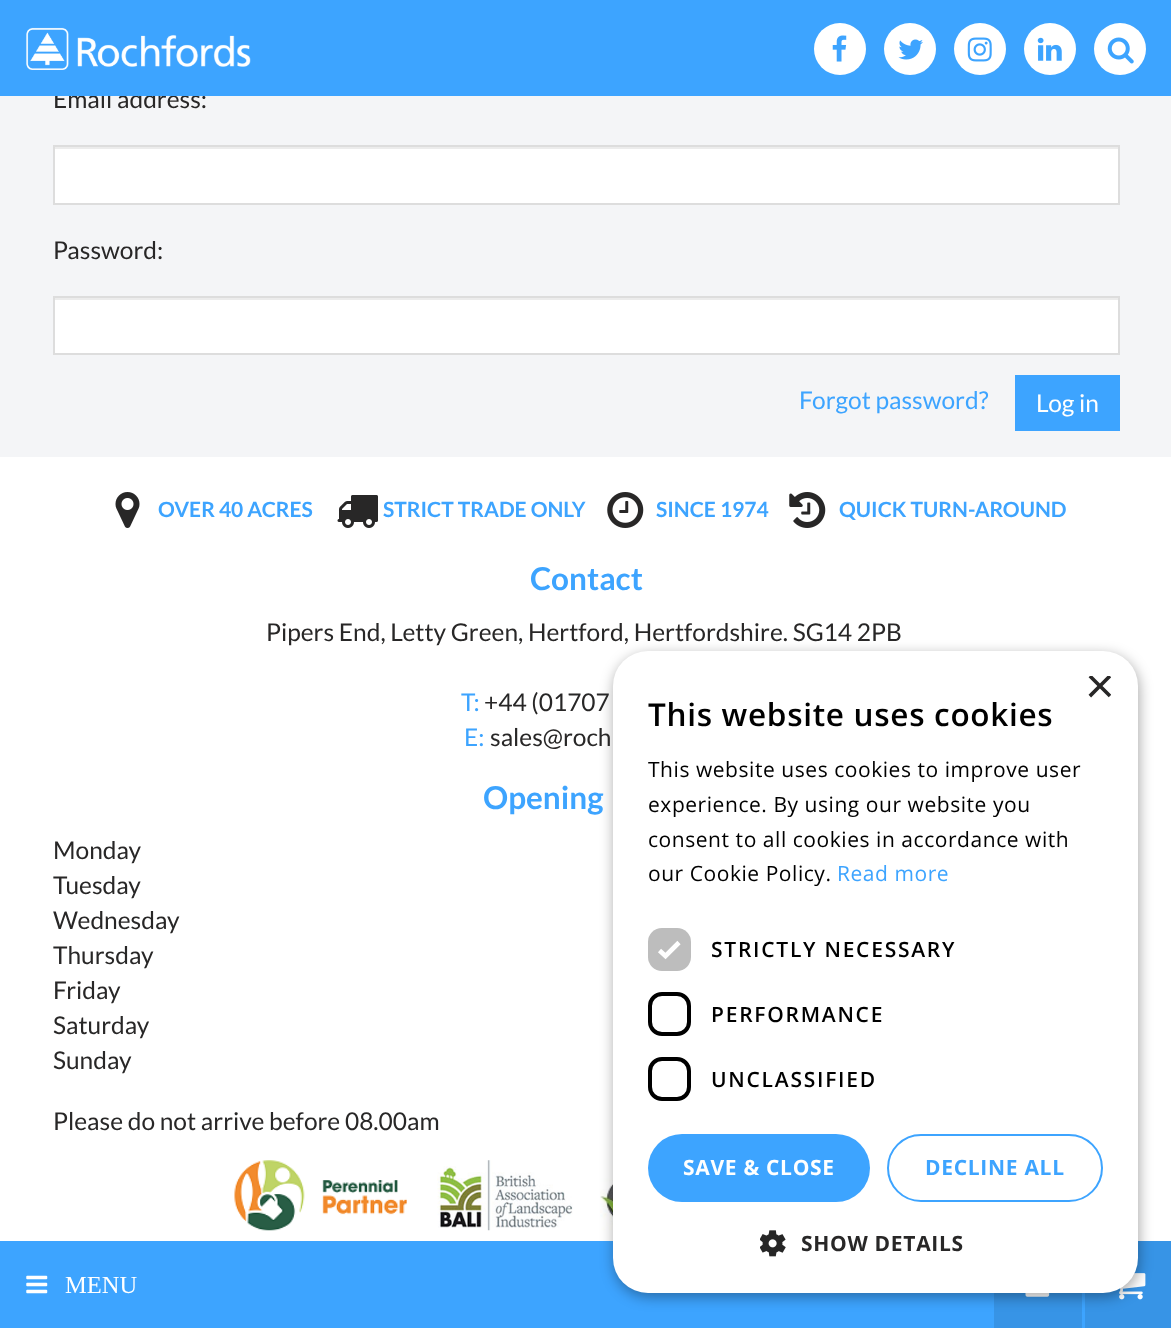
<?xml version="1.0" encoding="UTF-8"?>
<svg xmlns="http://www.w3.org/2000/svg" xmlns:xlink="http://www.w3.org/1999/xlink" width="1171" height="1328">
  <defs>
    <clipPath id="clip1"><rect x="1085" y="676" width="26" height="26" /></clipPath>
  </defs>
  <rect width="100%" height="100%" fill="#f4f5f7" />
  <rect x="55" y="149" width="1063" height="54" fill="#ffffff" />
  <rect x="54" y="147" width="1064" height="2" fill="#ececec" />
  <rect x="54" y="146" width="1065" height="58" fill="none" stroke="#dddddd" stroke-width="2" />
  <rect x="55" y="300" width="1063" height="53" fill="#ffffff" />
  <rect x="54" y="298" width="1064" height="2" fill="#ececec" />
  <rect x="54" y="297" width="1065" height="57" fill="none" stroke="#dddddd" stroke-width="2" />
  <rect x="1015" y="375" width="105" height="56" fill="#3da4ff" />
  <rect y="457" width="1171" height="784" fill="#ffffff" />
  <image x="115" y="492" width="25" height="36" xlink:href="image7.png" />
  <image x="337" y="495" width="41" height="33" xlink:href="image8.png" />
  <image x="607" y="492" width="37" height="36" xlink:href="image9.png" />
  <image x="789" y="492" width="37" height="36" xlink:href="image10.png" />
  <image x="234" y="1160" width="173" height="71" xlink:href="image11.png" />
  <image x="437" y="1160" width="136" height="71" xlink:href="image12.png" />
  <image x="600" y="1160" width="13" height="71" xlink:href="image13.png" />
  <rect y="1241" width="1085" height="87" fill="#3da4ff" />
  <image x="26" y="1275" width="22" height="19" xlink:href="image14.png" />
  <rect x="1085" y="1241" width="86" height="87" fill="#3794e6" />
  <image x="1119" y="1273" width="27" height="27" xlink:href="image15.png" />
  <rect x="994" y="1293" width="88" height="35" fill="#3794e6" />
  <image x="1025" y="1293" width="25" height="4" xlink:href="image16.png" />
  <rect x="614" y="655" width="525" height="642" rx="35" fill="#000000" fill-opacity="0.35" filter="blur(7px)" />
  <rect x="613" y="651" width="525" height="642" rx="35" fill="#ffffff" />
  <rect x="648" y="928" width="43" height="43" rx="14" fill="#bdbdbd" />
  <path d="M 659.5 950.5 l 6 5.5 l 13.5 -13.5" fill="none" stroke="#ffffff" stroke-width="4.6" />
  <rect x="650" y="994" width="39" height="40" rx="12" fill="none" stroke="#000000" stroke-width="4" />
  <rect x="650" y="1059" width="39" height="40" rx="12" fill="none" stroke="#000000" stroke-width="4" />
  <rect x="648" y="1134" width="222" height="68" rx="34" fill="#3da4ff" />
  <rect x="888" y="1135" width="214" height="66" rx="33" fill="none" stroke="#3da4ff" stroke-width="2" />
  <image x="760" y="1230" width="26" height="27" xlink:href="image17.png" />
  <text x="53" y="108" style="font-family: Lato; font-size: 24.5px; fill: #282727">Email address:</text>
  <rect width="1171" height="96" fill="#3da4ff" />
  <circle cx="1120" cy="49" r="26" fill="#ffffff" />
  <image x="1107" y="37" width="27" height="27" xlink:href="image6.png" />
  <circle cx="1050" cy="49" r="26" fill="#ffffff" />
  <image x="1037" y="37" width="25" height="24" xlink:href="image5.png" />
  <circle cx="980" cy="49" r="26" fill="#ffffff" />
  <image x="967" y="37" width="25" height="25" xlink:href="image4.png" />
  <circle cx="910" cy="49" r="26" fill="#ffffff" />
  <image x="898" y="39" width="25" height="21" xlink:href="image3.png" />
  <circle cx="840" cy="49" r="26" fill="#ffffff" />
  <image x="832" y="35" width="15" height="27" xlink:href="image2.png" />
  <image x="26" y="27" width="225" height="43" xlink:href="image1.png" />
  <text x="53" y="259" style="font-family: Lato; font-size: 24.5px; fill: #282727">Password:</text>
  <text x="799" y="409" style="font-family: Lato; font-size: 24.5px; fill: #3da4ff">Forgot password?</text>
  <text x="1036" y="412" style="font-family: Lato; font-size: 24.5px; fill: #ffffff">Log in</text>
  <text x="158" y="517" style="font-family: Lato; font-size: 21px; font-weight: bold; fill: #3da4ff">OVER 40 ACRES</text>
  <text x="383" y="517" style="font-family: Lato; font-size: 21px; font-weight: bold; fill: #3da4ff">STRICT TRADE ONLY</text>
  <text x="656" y="517" style="font-family: Lato; font-size: 21px; font-weight: bold; fill: #3da4ff">SINCE 1974</text>
  <text x="839" y="517" style="font-family: Lato; font-size: 21px; font-weight: bold; fill: #3da4ff">QUICK TURN-AROUND</text>
  <text x="530" y="590" style="font-family: Lato; font-size: 31.5px; font-weight: bold; fill: #3da4ff">Contact</text>
  <text x="266" y="641" style="font-family: Lato; font-size: 24.5px; fill: #282727">Pipers End, Letty Green, Hertford, Hertfordshire. SG14 2PB</text>
  <text x="461" y="711" style="font-family: Lato; font-size: 24.5px; fill: #3da4ff">T:</text>
  <text x="484" y="711" style="font-family: Lato; font-size: 24.5px; fill: #282727">+44 (01707</text>
  <text x="464" y="746" style="font-family: Lato; font-size: 24.5px; fill: #3da4ff">E:</text>
  <text x="490" y="746" style="font-family: Lato; font-size: 24.5px; fill: #282727">sales@roch</text>
  <text x="483" y="809" style="font-family: Lato; font-size: 31.5px; font-weight: bold; fill: #3da4ff">Opening</text>
  <text x="53" y="859" style="font-family: Lato; font-size: 24.5px; fill: #282727">Monday</text>
  <text x="53" y="894" style="font-family: Lato; font-size: 24.5px; fill: #282727">Tuesday</text>
  <text x="53" y="929" style="font-family: Lato; font-size: 24.5px; fill: #282727">Wednesday</text>
  <text x="53" y="964" style="font-family: Lato; font-size: 24.5px; fill: #282727">Thursday</text>
  <text x="53" y="999" style="font-family: Lato; font-size: 24.5px; fill: #282727">Friday</text>
  <text x="53" y="1034" style="font-family: Lato; font-size: 24.5px; fill: #282727">Saturday</text>
  <text x="53" y="1069" style="font-family: Lato; font-size: 24.5px; fill: #282727">Sunday</text>
  <text x="53" y="1130" style="font-family: Lato; font-size: 24.5px; fill: #282727">Please do not arrive before 08.00am</text>
  <text x="65" y="1293" style="font-family: Liberation Serif; font-size: 24.5px; fill: #ffffff">MENU</text>
  <g clip-path="url(#clip1)">
    <text x="1085" y="703" style="font-family: Liberation Sans; font-size: 51px; fill: #282727">×</text>
  </g>
  <text x="648" y="726" style="font-family: Open Sans; font-size: 31.5px; font-weight: 600; letter-spacing: 0.7px; fill: #000000">This website uses cookies</text>
  <text x="648" y="777" style="font-family: Open Sans; font-size: 21px; letter-spacing: 0.55px; fill: #000000">This website uses cookies to improve user</text>
  <text x="648" y="812" style="font-family: Open Sans; font-size: 21px; letter-spacing: 0.55px; fill: #000000">experience. By using our website you</text>
  <text x="648" y="847" style="font-family: Open Sans; font-size: 21px; letter-spacing: 0.55px; fill: #000000">consent to all cookies in accordance with</text>
  <text x="648" y="881" style="font-family: Open Sans; font-size: 21px; letter-spacing: 0.55px; fill: #000000">our Cookie Policy.</text>
  <text x="837" y="881" style="font-family: Open Sans; font-size: 21px; letter-spacing: 0.55px; fill: #3da4ff">Read more</text>
  <text x="711" y="957" style="font-family: Open Sans; font-size: 21px; font-weight: 600; letter-spacing: 1.75px; fill: #000000">STRICTLY NECESSARY</text>
  <text x="711" y="1022" style="font-family: Open Sans; font-size: 21px; font-weight: 600; letter-spacing: 1.75px; fill: #000000">PERFORMANCE</text>
  <text x="711" y="1087" style="font-family: Open Sans; font-size: 21px; font-weight: 600; letter-spacing: 1.75px; fill: #000000">UNCLASSIFIED</text>
  <text x="683" y="1175" style="font-family: Open Sans; font-size: 21px; font-weight: bold; letter-spacing: 0.7px; fill: #ffffff">SAVE &amp; CLOSE</text>
  <text x="925" y="1175" style="font-family: Open Sans; font-size: 21px; font-weight: bold; letter-spacing: 0.7px; fill: #3da4ff">DECLINE ALL</text>
  <text x="801" y="1251" style="font-family: Open Sans; font-size: 21px; font-weight: bold; letter-spacing: 0.7px; fill: #282727">SHOW DETAILS</text>
</svg>
